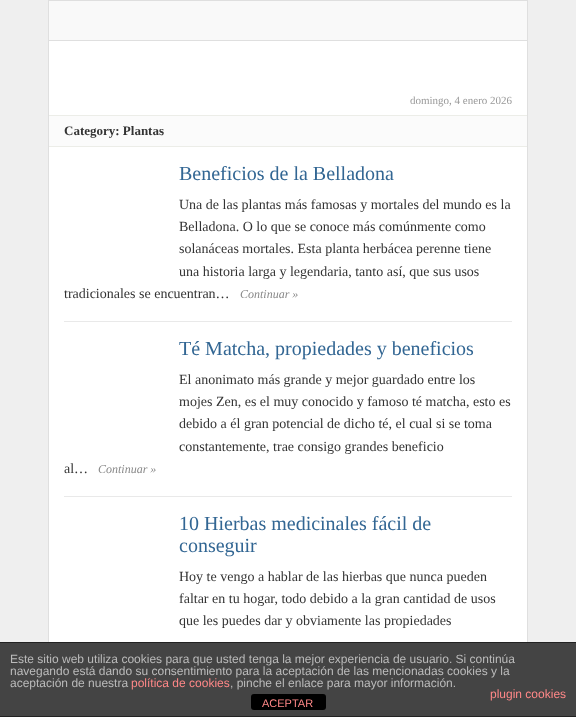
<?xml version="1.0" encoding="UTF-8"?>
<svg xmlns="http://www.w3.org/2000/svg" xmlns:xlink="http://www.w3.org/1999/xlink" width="576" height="717">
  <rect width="100%" height="100%" fill="#efefef" />
  <rect x="49" y="41" width="478" height="601" fill="#ffffff" />
  <rect x="48.5" y="0.5" width="479" height="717" fill="none" stroke="#dfdfdf" />
  <rect x="49" y="1" width="478" height="39" fill="#f9f9f9" />
  <rect x="49" y="40" width="478" height="1" fill="#dfdfdf" />
  <rect x="49" y="115" width="478" height="1" fill="#ecede8" />
  <rect x="49" y="116" width="478" height="30" fill="#fbfbfb" />
  <rect x="49" y="146" width="478" height="1" fill="#ecede8" />
  <rect x="64" y="321" width="448" height="1" fill="#e9e9e9" />
  <rect x="64" y="496" width="448" height="1" fill="#e9e9e9" />
  <rect y="643" width="576" height="73" fill="#444444" />
  <rect y="642" width="576" height="1" fill="#222222" />
  <rect y="716" width="576" height="1" fill="#222222" />
  <rect x="251" y="694" width="75" height="16" rx="3" fill="#000000" />
  <text x="410" y="104" style="font-family: Liberation Serif; font-size: 11px; fill: #999999">domingo, 4 enero 2026</text>
  <text x="64" y="135" style="font-family: Liberation Serif; font-size: 13px; font-weight: bold; fill: #333333">Category: Plantas</text>
  <text x="179" y="180" style="font-family: Liberation Serif; font-size: 20px; fill: #326693">Beneficios de la Belladona</text>
  <text x="179" y="209" style="font-family: Liberation Serif; font-size: 14px; fill: #333333">Una de las plantas más famosas y mortales del mundo es la</text>
  <text x="179" y="231" style="font-family: Liberation Serif; font-size: 14px; fill: #333333">Belladona. O lo que se conoce más comúnmente como</text>
  <text x="179" y="253" style="font-family: Liberation Serif; font-size: 14px; fill: #333333">solanáceas mortales. Esta planta herbácea perenne tiene</text>
  <text x="179" y="276" style="font-family: Liberation Serif; font-size: 14px; fill: #333333">una historia larga y legendaria, tanto así, que sus usos</text>
  <text x="64" y="298" style="font-family: Liberation Serif; font-size: 14px; fill: #333333">tradicionales se encuentran…</text>
  <text x="240" y="298" style="font-family: Liberation Serif; font-size: 12px; font-style: italic; fill: #888888">Continuar »</text>
  <text x="179" y="355" style="font-family: Liberation Serif; font-size: 20px; fill: #326693">Té Matcha, propiedades y beneficios</text>
  <text x="179" y="384" style="font-family: Liberation Serif; font-size: 14px; fill: #333333">El anonimato más grande y mejor guardado entre los</text>
  <text x="179" y="406" style="font-family: Liberation Serif; font-size: 14px; fill: #333333">mojes Zen, es el muy conocido y famoso té matcha, esto es</text>
  <text x="179" y="428" style="font-family: Liberation Serif; font-size: 14px; fill: #333333">debido a él gran potencial de dicho té, el cual si se toma</text>
  <text x="179" y="451" style="font-family: Liberation Serif; font-size: 14px; fill: #333333">constantemente, trae consigo grandes beneficio</text>
  <text x="64" y="473" style="font-family: Liberation Serif; font-size: 14px; fill: #333333">al…</text>
  <text x="98" y="473" style="font-family: Liberation Serif; font-size: 12px; font-style: italic; fill: #888888">Continuar »</text>
  <text x="179" y="530" style="font-family: Liberation Serif; font-size: 20px; fill: #326693">10 Hierbas medicinales fácil de</text>
  <text x="179" y="552" style="font-family: Liberation Serif; font-size: 20px; fill: #326693">conseguir</text>
  <text x="179" y="581" style="font-family: Liberation Serif; font-size: 14px; fill: #333333">Hoy te vengo a hablar de las hierbas que nunca pueden</text>
  <text x="179" y="603" style="font-family: Liberation Serif; font-size: 14px; fill: #333333">faltar en tu hogar, todo debido a la gran cantidad de usos</text>
  <text x="179" y="625" style="font-family: Liberation Serif; font-size: 14px; fill: #333333">que les puedes dar y obviamente las propiedades</text>
  <text x="10" y="663" style="font-family: Liberation Sans; font-size: 12px; fill: #bbbbbb">Este sitio web utiliza cookies para que usted tenga la mejor experiencia de usuario. Si continúa</text>
  <text x="10" y="675" style="font-family: Liberation Sans; font-size: 12px; fill: #bbbbbb">navegando está dando su consentimiento para la aceptación de las mencionadas cookies y la</text>
  <text x="10" y="687" style="font-family: Liberation Sans; font-size: 12px; fill: #bbbbbb">aceptación de nuestra</text>
  <text x="131" y="687" style="font-family: Liberation Sans; font-size: 12px; fill: #ff8888">política de cookies</text>
  <text x="230" y="687" style="font-family: Liberation Sans; font-size: 12px; fill: #bbbbbb">, pinche el enlace para mayor información.</text>
  <text x="490" y="698" style="font-family: Liberation Sans; font-size: 12px; fill: #ff8888">plugin cookies</text>
  <text x="262" y="707" style="font-family: Liberation Sans; font-size: 11px; fill: #ff8888">ACEPTAR</text>
</svg>
